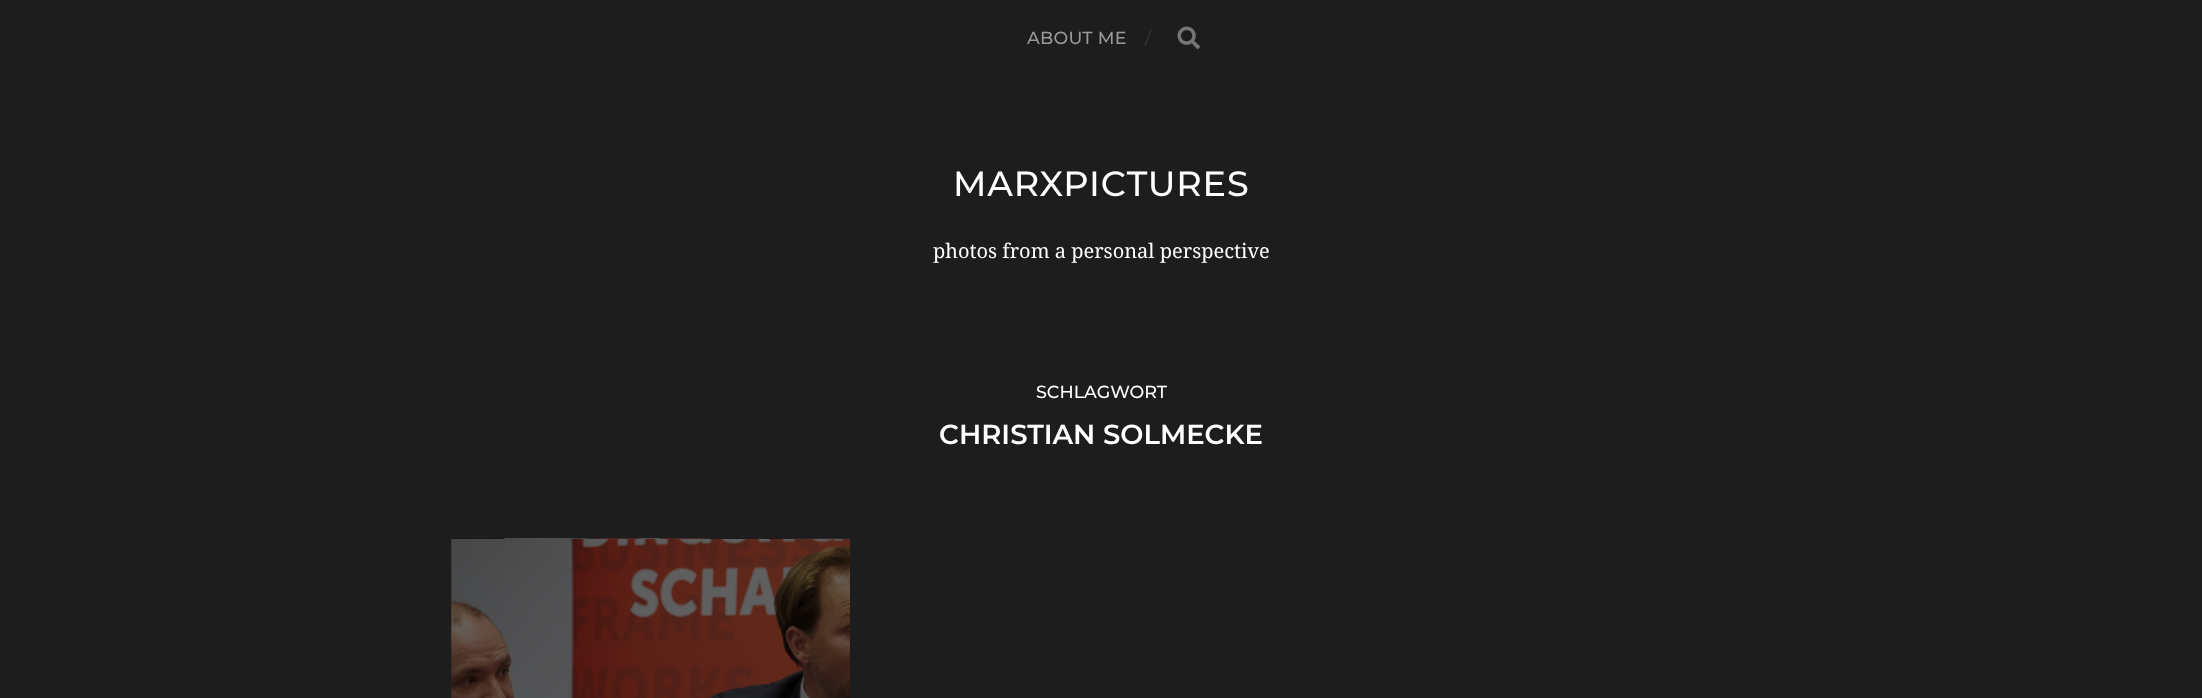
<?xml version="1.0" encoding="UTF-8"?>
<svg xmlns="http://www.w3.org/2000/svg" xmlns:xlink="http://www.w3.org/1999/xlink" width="2202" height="698">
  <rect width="100%" height="100%" fill="#1d1d1d" />
  <image x="1177" y="26" width="23" height="23" xlink:href="image1.png" />
  <image x="451" y="538" width="399" height="160" xlink:href="image2.png" />
  <text x="1027" y="44" style="font-family: Montserrat; font-size: 17.5px; font-weight: 100; letter-spacing: 0.25px; fill: #999999">ABOUT ME</text>
  <text x="1145" y="44" style="font-family: 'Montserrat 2'; font-size: 17.5px; font-weight: 100; fill: #3d3d3d">/</text>
  <text x="953" y="196" style="font-family: Montserrat; font-size: 35px; font-weight: 100; letter-spacing: 0.9px; fill: #ffffff">MARXPICTURES</text>
  <text x="933" y="258" style="font-family: Droid Serif; font-size: 20px; fill: #ffffff">photos from a personal perspective</text>
  <text x="1036" y="398" style="font-family: Montserrat; font-size: 17.5px; font-weight: 100; fill: #ffffff">SCHLAGWORT</text>
  <text x="939" y="444" style="font-family: 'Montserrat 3'; font-size: 27.5px; font-weight: 100; fill: #ffffff">CHRISTIAN SOLMECKE</text>
</svg>
